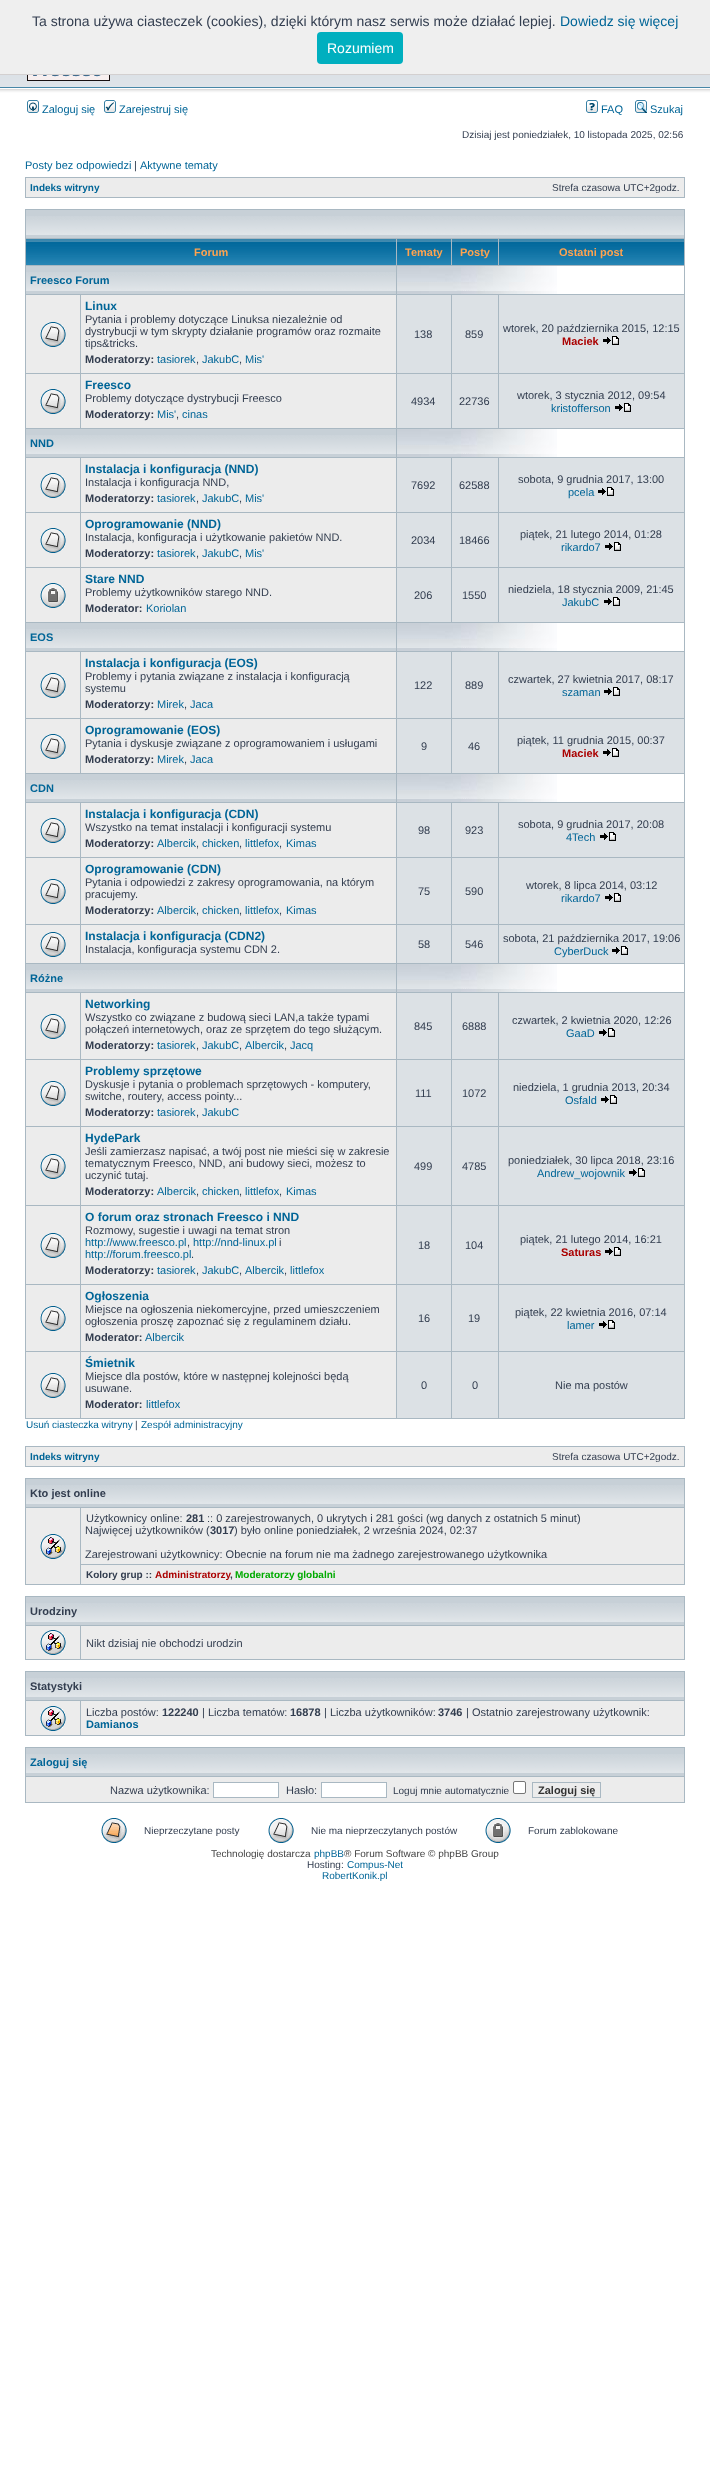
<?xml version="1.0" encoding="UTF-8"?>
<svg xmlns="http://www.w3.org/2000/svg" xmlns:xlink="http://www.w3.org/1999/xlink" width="710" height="2466">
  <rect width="100%" height="100%" fill="#ffffff" />
  <rect width="710" height="74" fill="#efefef" />
  <rect y="74" width="710" height="1" fill="#d3d0d0" />
  <rect x="317" y="32" width="86" height="32" rx="4" fill="#00afbf" />
  <image x="0" y="75" width="710" height="23" xlink:href="image1.png" />
  <image x="27" y="75" width="83" height="6" xlink:href="image2.png" />
  <image x="27" y="100" width="12" height="13" xlink:href="image3.png" />
  <image x="104" y="100" width="12" height="13" xlink:href="image4.png" />
  <image x="586" y="100" width="12" height="13" xlink:href="image5.png" />
  <image x="635" y="100" width="12" height="13" xlink:href="image6.png" />
  <rect x="25" y="177" width="660" height="21" fill="#a9b8c2" />
  <rect x="26" y="178" width="658" height="19" fill="#ececec" />
  <rect x="25" y="209" width="660" height="1210" fill="#a9b8c2" />
  <rect x="26" y="210" width="658" height="28" fill="#c7d0d7" />
  <image x="26" y="216" width="658" height="19" xlink:href="image7.png" />
  <image x="26" y="239" width="370" height="26" xlink:href="image8.png" />
  <image x="397" y="239" width="54" height="26" xlink:href="image9.png" />
  <image x="452" y="239" width="46" height="26" xlink:href="image10.png" />
  <image x="499" y="239" width="185" height="26" xlink:href="image11.png" />
  <rect x="26" y="266" width="370" height="28" fill="#c7d0d7" />
  <image x="26" y="272" width="370" height="19" xlink:href="image12.png" />
  <rect x="557" y="266" width="127" height="28" fill="#ffffff" />
  <image x="397" y="266" width="160" height="28" xlink:href="image13.png" />
  <rect x="26" y="295" width="54" height="78" fill="#ececec" />
  <image x="40" y="322" width="26" height="25" xlink:href="image14.png" />
  <rect x="81" y="295" width="315" height="78" fill="#ececec" />
  <rect x="397" y="295" width="54" height="78" fill="#dce1e5" />
  <rect x="452" y="295" width="46" height="78" fill="#dce1e5" />
  <rect x="499" y="295" width="185" height="78" fill="#dce1e5" />
  <image x="603" y="336" width="16" height="9" xlink:href="image15.png" />
  <rect x="26" y="374" width="54" height="54" fill="#ececec" />
  <image x="40" y="389" width="26" height="25" xlink:href="image14.png" />
  <rect x="81" y="374" width="315" height="54" fill="#ececec" />
  <rect x="397" y="374" width="54" height="54" fill="#dce1e5" />
  <rect x="452" y="374" width="46" height="54" fill="#dce1e5" />
  <rect x="499" y="374" width="185" height="54" fill="#dce1e5" />
  <image x="615" y="403" width="16" height="9" xlink:href="image15.png" />
  <rect x="26" y="429" width="370" height="28" fill="#c7d0d7" />
  <image x="26" y="435" width="370" height="19" xlink:href="image12.png" />
  <rect x="557" y="429" width="127" height="28" fill="#ffffff" />
  <image x="397" y="429" width="160" height="28" xlink:href="image13.png" />
  <rect x="26" y="458" width="54" height="54" fill="#ececec" />
  <image x="40" y="473" width="26" height="25" xlink:href="image14.png" />
  <rect x="81" y="458" width="315" height="54" fill="#ececec" />
  <rect x="397" y="458" width="54" height="54" fill="#dce1e5" />
  <rect x="452" y="458" width="46" height="54" fill="#dce1e5" />
  <rect x="499" y="458" width="185" height="54" fill="#dce1e5" />
  <image x="598" y="487" width="16" height="9" xlink:href="image15.png" />
  <rect x="26" y="513" width="54" height="54" fill="#ececec" />
  <image x="40" y="528" width="26" height="25" xlink:href="image14.png" />
  <rect x="81" y="513" width="315" height="54" fill="#ececec" />
  <rect x="397" y="513" width="54" height="54" fill="#dce1e5" />
  <rect x="452" y="513" width="46" height="54" fill="#dce1e5" />
  <rect x="499" y="513" width="185" height="54" fill="#dce1e5" />
  <image x="605" y="542" width="16" height="9" xlink:href="image15.png" />
  <rect x="26" y="568" width="54" height="54" fill="#ececec" />
  <image x="40" y="583" width="26" height="25" xlink:href="image16.png" />
  <rect x="81" y="568" width="315" height="54" fill="#ececec" />
  <rect x="397" y="568" width="54" height="54" fill="#dce1e5" />
  <rect x="452" y="568" width="46" height="54" fill="#dce1e5" />
  <rect x="499" y="568" width="185" height="54" fill="#dce1e5" />
  <image x="604" y="597" width="16" height="9" xlink:href="image15.png" />
  <rect x="26" y="623" width="370" height="28" fill="#c7d0d7" />
  <image x="26" y="629" width="370" height="19" xlink:href="image12.png" />
  <rect x="557" y="623" width="127" height="28" fill="#ffffff" />
  <image x="397" y="623" width="160" height="28" xlink:href="image13.png" />
  <rect x="26" y="652" width="54" height="66" fill="#ececec" />
  <image x="40" y="673" width="26" height="25" xlink:href="image14.png" />
  <rect x="81" y="652" width="315" height="66" fill="#ececec" />
  <rect x="397" y="652" width="54" height="66" fill="#dce1e5" />
  <rect x="452" y="652" width="46" height="66" fill="#dce1e5" />
  <rect x="499" y="652" width="185" height="66" fill="#dce1e5" />
  <image x="604" y="687" width="16" height="9" xlink:href="image15.png" />
  <rect x="26" y="719" width="54" height="54" fill="#ececec" />
  <image x="40" y="734" width="26" height="25" xlink:href="image14.png" />
  <rect x="81" y="719" width="315" height="54" fill="#ececec" />
  <rect x="397" y="719" width="54" height="54" fill="#dce1e5" />
  <rect x="452" y="719" width="46" height="54" fill="#dce1e5" />
  <rect x="499" y="719" width="185" height="54" fill="#dce1e5" />
  <image x="603" y="748" width="16" height="9" xlink:href="image15.png" />
  <rect x="26" y="774" width="370" height="28" fill="#c7d0d7" />
  <image x="26" y="780" width="370" height="19" xlink:href="image12.png" />
  <rect x="557" y="774" width="127" height="28" fill="#ffffff" />
  <image x="397" y="774" width="160" height="28" xlink:href="image13.png" />
  <rect x="26" y="803" width="54" height="54" fill="#ececec" />
  <image x="40" y="818" width="26" height="25" xlink:href="image14.png" />
  <rect x="81" y="803" width="315" height="54" fill="#ececec" />
  <rect x="397" y="803" width="54" height="54" fill="#dce1e5" />
  <rect x="452" y="803" width="46" height="54" fill="#dce1e5" />
  <rect x="499" y="803" width="185" height="54" fill="#dce1e5" />
  <image x="600" y="832" width="16" height="9" xlink:href="image15.png" />
  <rect x="26" y="858" width="54" height="66" fill="#ececec" />
  <image x="40" y="879" width="26" height="25" xlink:href="image14.png" />
  <rect x="81" y="858" width="315" height="66" fill="#ececec" />
  <rect x="397" y="858" width="54" height="66" fill="#dce1e5" />
  <rect x="452" y="858" width="46" height="66" fill="#dce1e5" />
  <rect x="499" y="858" width="185" height="66" fill="#dce1e5" />
  <image x="605" y="893" width="16" height="9" xlink:href="image15.png" />
  <rect x="26" y="925" width="54" height="38" fill="#ececec" />
  <image x="40" y="932" width="26" height="25" xlink:href="image14.png" />
  <rect x="81" y="925" width="315" height="38" fill="#ececec" />
  <rect x="397" y="925" width="54" height="38" fill="#dce1e5" />
  <rect x="452" y="925" width="46" height="38" fill="#dce1e5" />
  <rect x="499" y="925" width="185" height="38" fill="#dce1e5" />
  <image x="612" y="946" width="16" height="9" xlink:href="image15.png" />
  <rect x="26" y="964" width="370" height="28" fill="#c7d0d7" />
  <image x="26" y="970" width="370" height="19" xlink:href="image12.png" />
  <rect x="557" y="964" width="127" height="28" fill="#ffffff" />
  <image x="397" y="964" width="160" height="28" xlink:href="image13.png" />
  <rect x="26" y="993" width="54" height="66" fill="#ececec" />
  <image x="40" y="1014" width="26" height="25" xlink:href="image14.png" />
  <rect x="81" y="993" width="315" height="66" fill="#ececec" />
  <rect x="397" y="993" width="54" height="66" fill="#dce1e5" />
  <rect x="452" y="993" width="46" height="66" fill="#dce1e5" />
  <rect x="499" y="993" width="185" height="66" fill="#dce1e5" />
  <image x="599" y="1028" width="16" height="9" xlink:href="image15.png" />
  <rect x="26" y="1060" width="54" height="66" fill="#ececec" />
  <image x="40" y="1081" width="26" height="25" xlink:href="image14.png" />
  <rect x="81" y="1060" width="315" height="66" fill="#ececec" />
  <rect x="397" y="1060" width="54" height="66" fill="#dce1e5" />
  <rect x="452" y="1060" width="46" height="66" fill="#dce1e5" />
  <rect x="499" y="1060" width="185" height="66" fill="#dce1e5" />
  <image x="601" y="1095" width="16" height="9" xlink:href="image15.png" />
  <rect x="26" y="1127" width="54" height="78" fill="#ececec" />
  <image x="40" y="1154" width="26" height="25" xlink:href="image14.png" />
  <rect x="81" y="1127" width="315" height="78" fill="#ececec" />
  <rect x="397" y="1127" width="54" height="78" fill="#dce1e5" />
  <rect x="452" y="1127" width="46" height="78" fill="#dce1e5" />
  <rect x="499" y="1127" width="185" height="78" fill="#dce1e5" />
  <image x="629" y="1168" width="16" height="9" xlink:href="image15.png" />
  <rect x="26" y="1206" width="54" height="78" fill="#ececec" />
  <image x="40" y="1233" width="26" height="25" xlink:href="image14.png" />
  <rect x="81" y="1206" width="315" height="78" fill="#ececec" />
  <rect x="397" y="1206" width="54" height="78" fill="#dce1e5" />
  <rect x="452" y="1206" width="46" height="78" fill="#dce1e5" />
  <rect x="499" y="1206" width="185" height="78" fill="#dce1e5" />
  <image x="605" y="1247" width="16" height="9" xlink:href="image15.png" />
  <rect x="26" y="1285" width="54" height="66" fill="#ececec" />
  <image x="40" y="1306" width="26" height="25" xlink:href="image14.png" />
  <rect x="81" y="1285" width="315" height="66" fill="#ececec" />
  <rect x="397" y="1285" width="54" height="66" fill="#dce1e5" />
  <rect x="452" y="1285" width="46" height="66" fill="#dce1e5" />
  <rect x="499" y="1285" width="185" height="66" fill="#dce1e5" />
  <image x="599" y="1320" width="16" height="9" xlink:href="image15.png" />
  <rect x="26" y="1352" width="54" height="66" fill="#ececec" />
  <image x="40" y="1373" width="26" height="25" xlink:href="image14.png" />
  <rect x="81" y="1352" width="315" height="66" fill="#ececec" />
  <rect x="397" y="1352" width="54" height="66" fill="#dce1e5" />
  <rect x="452" y="1352" width="46" height="66" fill="#dce1e5" />
  <rect x="499" y="1352" width="185" height="66" fill="#dce1e5" />
  <rect x="25" y="1446" width="660" height="21" fill="#a9b8c2" />
  <rect x="26" y="1447" width="658" height="19" fill="#ececec" />
  <rect x="25" y="1478" width="660" height="107" fill="#a9b8c2" />
  <rect x="26" y="1479" width="658" height="28" fill="#c7d0d7" />
  <image x="26" y="1485" width="658" height="19" xlink:href="image7.png" />
  <rect x="26" y="1508" width="54" height="76" fill="#ececec" />
  <image x="40" y="1534" width="26" height="25" xlink:href="image17.png" />
  <rect x="81" y="1508" width="603" height="56" fill="#ececec" />
  <rect x="81" y="1565" width="603" height="19" fill="#ececec" />
  <rect x="25" y="1596" width="660" height="64" fill="#a9b8c2" />
  <rect x="26" y="1597" width="658" height="28" fill="#c7d0d7" />
  <image x="26" y="1603" width="658" height="19" xlink:href="image7.png" />
  <rect x="26" y="1626" width="54" height="33" fill="#ececec" />
  <image x="40" y="1630" width="26" height="25" xlink:href="image17.png" />
  <rect x="81" y="1626" width="603" height="33" fill="#ececec" />
  <rect x="25" y="1671" width="660" height="65" fill="#a9b8c2" />
  <rect x="26" y="1672" width="658" height="28" fill="#c7d0d7" />
  <image x="26" y="1678" width="658" height="19" xlink:href="image7.png" />
  <rect x="26" y="1701" width="54" height="34" fill="#ececec" />
  <image x="40" y="1706" width="26" height="25" xlink:href="image17.png" />
  <rect x="81" y="1701" width="603" height="34" fill="#ececec" />
  <rect x="25" y="1747" width="660" height="56" fill="#a9b8c2" />
  <rect x="26" y="1748" width="658" height="28" fill="#c7d0d7" />
  <image x="26" y="1754" width="658" height="19" xlink:href="image7.png" />
  <rect x="26" y="1777" width="658" height="25" fill="#ececec" />
  <rect x="213.5" y="1782.5" width="65" height="15" fill="#ffffff" stroke="#a9b8c2" />
  <rect x="321.5" y="1782.5" width="65" height="15" fill="#ffffff" stroke="#a9b8c2" />
  <rect x="513.5" y="1781.5" width="12" height="12" rx="1.5" fill="#ffffff" stroke="#767676" />
  <rect x="532.5" y="1782.5" width="68" height="15" fill="none" stroke="#a9b8c2" />
  <image x="101" y="1818" width="26" height="25" xlink:href="image18.png" />
  <image x="268" y="1818" width="26" height="25" xlink:href="image19.png" />
  <image x="485" y="1818" width="26" height="25" xlink:href="image20.png" />
  <text x="32" y="26" style="font-family: Liberation Sans; font-size: 14px; fill: #323d4f">Ta strona używa ciasteczek (cookies), dzięki którym nasz serwis może działać lepiej.</text>
  <text x="560" y="26" style="font-family: Liberation Sans; font-size: 14px; fill: #006597">Dowiedz się więcej</text>
  <text x="327" y="53" style="font-family: Liberation Sans; font-size: 14px; fill: #ffffff">Rozumiem</text>
  <text x="42" y="113" style="font-family: Liberation Sans; font-size: 11px; fill: #006597">Zaloguj się</text>
  <text x="119" y="113" style="font-family: Liberation Sans; font-size: 11px; fill: #006597">Zarejestruj się</text>
  <text x="601" y="113" style="font-family: Liberation Sans; font-size: 11px; fill: #006597">FAQ</text>
  <text x="650" y="113" style="font-family: Liberation Sans; font-size: 11px; fill: #006597">Szukaj</text>
  <text x="462" y="138" style="font-family: Liberation Sans; font-size: 10px; fill: #323d4f">Dzisiaj jest poniedziałek, 10 listopada 2025, 02:56</text>
  <text x="25" y="169" style="font-family: Liberation Sans; font-size: 11px; fill: #006597">Posty bez odpowiedzi</text>
  <text x="134" y="169" style="font-family: Liberation Sans; font-size: 11px; fill: #323d4f">|</text>
  <text x="140" y="169" style="font-family: Liberation Sans; font-size: 11px; fill: #006597">Aktywne tematy</text>
  <text x="30" y="191" style="font-family: Liberation Sans; font-size: 10px; font-weight: bold; fill: #006597">Indeks witryny</text>
  <text x="552" y="191" style="font-family: Liberation Sans; font-size: 10px; fill: #323d4f">Strefa czasowa UTC+2godz.</text>
  <text x="194" y="256" style="font-family: Liberation Sans; font-size: 11px; font-weight: bold; fill: #ffa34f">Forum</text>
  <text x="405" y="256" style="font-family: Liberation Sans; font-size: 11px; font-weight: bold; fill: #ffa34f">Tematy</text>
  <text x="460" y="256" style="font-family: Liberation Sans; font-size: 11px; font-weight: bold; fill: #ffa34f">Posty</text>
  <text x="559" y="256" style="font-family: Liberation Sans; font-size: 11px; font-weight: bold; fill: #ffa34f">Ostatni post</text>
  <text x="30" y="284" style="font-family: Liberation Sans; font-size: 11px; font-weight: bold; fill: #006597">Freesco Forum</text>
  <text x="85" y="310" style="font-family: Liberation Sans; font-size: 12px; font-weight: bold; fill: #006597">Linux</text>
  <text x="85" y="323" style="font-family: Liberation Sans; font-size: 11px; fill: #323d4f">Pytania i problemy dotyczące Linuksa niezależnie od</text>
  <text x="85" y="335" style="font-family: Liberation Sans; font-size: 11px; fill: #323d4f">dystrybucji w tym skrypty działanie programów oraz rozmaite</text>
  <text x="85" y="347" style="font-family: Liberation Sans; font-size: 11px; fill: #323d4f">tips&amp;tricks.</text>
  <text x="85" y="363" style="font-family: Liberation Sans; font-size: 11px; font-weight: bold; fill: #323d4f">Moderatorzy:</text>
  <text x="157" y="363" style="font-family: Liberation Sans; font-size: 11px; fill: #006597">tasiorek</text>
  <text x="196" y="363" style="font-family: Liberation Sans; font-size: 11px; fill: #323d4f">,</text>
  <text x="202" y="363" style="font-family: Liberation Sans; font-size: 11px; fill: #006597">JakubC</text>
  <text x="239" y="363" style="font-family: Liberation Sans; font-size: 11px; fill: #323d4f">,</text>
  <text x="245" y="363" style="font-family: Liberation Sans; font-size: 11px; fill: #006597">Mis'</text>
  <text x="414" y="338" style="font-family: Liberation Sans; font-size: 11px; fill: #323d4f">138</text>
  <text x="465" y="338" style="font-family: Liberation Sans; font-size: 11px; fill: #323d4f">859</text>
  <text x="503" y="332" style="font-family: Liberation Sans; font-size: 11px; fill: #323d4f">wtorek, 20 października 2015, 12:15</text>
  <text x="562" y="345" style="font-family: Liberation Sans; font-size: 11px; font-weight: bold; fill: #aa0000">Maciek</text>
  <text x="85" y="389" style="font-family: Liberation Sans; font-size: 12px; font-weight: bold; fill: #006597">Freesco</text>
  <text x="85" y="402" style="font-family: Liberation Sans; font-size: 11px; fill: #323d4f">Problemy dotyczące dystrybucji Freesco</text>
  <text x="85" y="418" style="font-family: Liberation Sans; font-size: 11px; font-weight: bold; fill: #323d4f">Moderatorzy:</text>
  <text x="157" y="418" style="font-family: Liberation Sans; font-size: 11px; fill: #006597">Mis'</text>
  <text x="176" y="418" style="font-family: Liberation Sans; font-size: 11px; fill: #323d4f">,</text>
  <text x="182" y="418" style="font-family: Liberation Sans; font-size: 11px; fill: #006597">cinas</text>
  <text x="411" y="405" style="font-family: Liberation Sans; font-size: 11px; fill: #323d4f">4934</text>
  <text x="459" y="405" style="font-family: Liberation Sans; font-size: 11px; fill: #323d4f">22736</text>
  <text x="517" y="399" style="font-family: Liberation Sans; font-size: 11px; fill: #323d4f">wtorek, 3 stycznia 2012, 09:54</text>
  <text x="551" y="412" style="font-family: Liberation Sans; font-size: 11px; fill: #006597">kristofferson</text>
  <text x="30" y="447" style="font-family: Liberation Sans; font-size: 11px; font-weight: bold; fill: #006597">NND</text>
  <text x="85" y="473" style="font-family: Liberation Sans; font-size: 12px; font-weight: bold; fill: #006597">Instalacja i konfiguracja (NND)</text>
  <text x="85" y="486" style="font-family: Liberation Sans; font-size: 11px; fill: #323d4f">Instalacja i konfiguracja NND,</text>
  <text x="85" y="502" style="font-family: Liberation Sans; font-size: 11px; font-weight: bold; fill: #323d4f">Moderatorzy:</text>
  <text x="157" y="502" style="font-family: Liberation Sans; font-size: 11px; fill: #006597">tasiorek</text>
  <text x="196" y="502" style="font-family: Liberation Sans; font-size: 11px; fill: #323d4f">,</text>
  <text x="202" y="502" style="font-family: Liberation Sans; font-size: 11px; fill: #006597">JakubC</text>
  <text x="239" y="502" style="font-family: Liberation Sans; font-size: 11px; fill: #323d4f">,</text>
  <text x="245" y="502" style="font-family: Liberation Sans; font-size: 11px; fill: #006597">Mis'</text>
  <text x="411" y="489" style="font-family: Liberation Sans; font-size: 11px; fill: #323d4f">7692</text>
  <text x="459" y="489" style="font-family: Liberation Sans; font-size: 11px; fill: #323d4f">62588</text>
  <text x="518" y="483" style="font-family: Liberation Sans; font-size: 11px; fill: #323d4f">sobota, 9 grudnia 2017, 13:00</text>
  <text x="568" y="496" style="font-family: Liberation Sans; font-size: 11px; fill: #006597">pcela</text>
  <text x="85" y="528" style="font-family: Liberation Sans; font-size: 12px; font-weight: bold; fill: #006597">Oprogramowanie (NND)</text>
  <text x="85" y="541" style="font-family: Liberation Sans; font-size: 11px; fill: #323d4f">Instalacja, konfiguracja i użytkowanie pakietów NND.</text>
  <text x="85" y="557" style="font-family: Liberation Sans; font-size: 11px; font-weight: bold; fill: #323d4f">Moderatorzy:</text>
  <text x="157" y="557" style="font-family: Liberation Sans; font-size: 11px; fill: #006597">tasiorek</text>
  <text x="196" y="557" style="font-family: Liberation Sans; font-size: 11px; fill: #323d4f">,</text>
  <text x="202" y="557" style="font-family: Liberation Sans; font-size: 11px; fill: #006597">JakubC</text>
  <text x="239" y="557" style="font-family: Liberation Sans; font-size: 11px; fill: #323d4f">,</text>
  <text x="245" y="557" style="font-family: Liberation Sans; font-size: 11px; fill: #006597">Mis'</text>
  <text x="411" y="544" style="font-family: Liberation Sans; font-size: 11px; fill: #323d4f">2034</text>
  <text x="459" y="544" style="font-family: Liberation Sans; font-size: 11px; fill: #323d4f">18466</text>
  <text x="520" y="538" style="font-family: Liberation Sans; font-size: 11px; fill: #323d4f">piątek, 21 lutego 2014, 01:28</text>
  <text x="561" y="551" style="font-family: Liberation Sans; font-size: 11px; fill: #006597">rikardo7</text>
  <text x="85" y="583" style="font-family: Liberation Sans; font-size: 12px; font-weight: bold; fill: #006597">Stare NND</text>
  <text x="85" y="596" style="font-family: Liberation Sans; font-size: 11px; fill: #323d4f">Problemy użytkowników starego NND.</text>
  <text x="85" y="612" style="font-family: Liberation Sans; font-size: 11px; font-weight: bold; fill: #323d4f">Moderator:</text>
  <text x="146" y="612" style="font-family: Liberation Sans; font-size: 11px; fill: #006597">Koriolan</text>
  <text x="414" y="599" style="font-family: Liberation Sans; font-size: 11px; fill: #323d4f">206</text>
  <text x="462" y="599" style="font-family: Liberation Sans; font-size: 11px; fill: #323d4f">1550</text>
  <text x="508" y="593" style="font-family: Liberation Sans; font-size: 11px; fill: #323d4f">niedziela, 18 stycznia 2009, 21:45</text>
  <text x="562" y="606" style="font-family: Liberation Sans; font-size: 11px; fill: #006597">JakubC</text>
  <text x="30" y="641" style="font-family: Liberation Sans; font-size: 11px; font-weight: bold; fill: #006597">EOS</text>
  <text x="85" y="667" style="font-family: Liberation Sans; font-size: 12px; font-weight: bold; fill: #006597">Instalacja i konfiguracja (EOS)</text>
  <text x="85" y="680" style="font-family: Liberation Sans; font-size: 11px; fill: #323d4f">Problemy i pytania związane z instalacja i konfiguracją</text>
  <text x="85" y="692" style="font-family: Liberation Sans; font-size: 11px; fill: #323d4f">systemu</text>
  <text x="85" y="708" style="font-family: Liberation Sans; font-size: 11px; font-weight: bold; fill: #323d4f">Moderatorzy:</text>
  <text x="157" y="708" style="font-family: Liberation Sans; font-size: 11px; fill: #006597">Mirek</text>
  <text x="184" y="708" style="font-family: Liberation Sans; font-size: 11px; fill: #323d4f">,</text>
  <text x="190" y="708" style="font-family: Liberation Sans; font-size: 11px; fill: #006597">Jaca</text>
  <text x="414" y="689" style="font-family: Liberation Sans; font-size: 11px; fill: #323d4f">122</text>
  <text x="465" y="689" style="font-family: Liberation Sans; font-size: 11px; fill: #323d4f">889</text>
  <text x="508" y="683" style="font-family: Liberation Sans; font-size: 11px; fill: #323d4f">czwartek, 27 kwietnia 2017, 08:17</text>
  <text x="562" y="696" style="font-family: Liberation Sans; font-size: 11px; fill: #006597">szaman</text>
  <text x="85" y="734" style="font-family: Liberation Sans; font-size: 12px; font-weight: bold; fill: #006597">Oprogramowanie (EOS)</text>
  <text x="85" y="747" style="font-family: Liberation Sans; font-size: 11px; fill: #323d4f">Pytania i dyskusje związane z oprogramowaniem i usługami</text>
  <text x="85" y="763" style="font-family: Liberation Sans; font-size: 11px; font-weight: bold; fill: #323d4f">Moderatorzy:</text>
  <text x="157" y="763" style="font-family: Liberation Sans; font-size: 11px; fill: #006597">Mirek</text>
  <text x="184" y="763" style="font-family: Liberation Sans; font-size: 11px; fill: #323d4f">,</text>
  <text x="190" y="763" style="font-family: Liberation Sans; font-size: 11px; fill: #006597">Jaca</text>
  <text x="421" y="750" style="font-family: Liberation Sans; font-size: 11px; fill: #323d4f">9</text>
  <text x="468" y="750" style="font-family: Liberation Sans; font-size: 11px; fill: #323d4f">46</text>
  <text x="517" y="744" style="font-family: Liberation Sans; font-size: 11px; fill: #323d4f">piątek, 11 grudnia 2015, 00:37</text>
  <text x="562" y="757" style="font-family: Liberation Sans; font-size: 11px; font-weight: bold; fill: #aa0000">Maciek</text>
  <text x="30" y="792" style="font-family: Liberation Sans; font-size: 11px; font-weight: bold; fill: #006597">CDN</text>
  <text x="85" y="818" style="font-family: Liberation Sans; font-size: 12px; font-weight: bold; fill: #006597">Instalacja i konfiguracja (CDN)</text>
  <text x="85" y="831" style="font-family: Liberation Sans; font-size: 11px; fill: #323d4f">Wszystko na temat instalacji i konfiguracji systemu</text>
  <text x="85" y="847" style="font-family: Liberation Sans; font-size: 11px; font-weight: bold; fill: #323d4f">Moderatorzy:</text>
  <text x="157" y="847" style="font-family: Liberation Sans; font-size: 11px; fill: #006597">Albercik</text>
  <text x="196" y="847" style="font-family: Liberation Sans; font-size: 11px; fill: #323d4f">,</text>
  <text x="202" y="847" style="font-family: Liberation Sans; font-size: 11px; fill: #006597">chicken</text>
  <text x="239" y="847" style="font-family: Liberation Sans; font-size: 11px; fill: #323d4f">,</text>
  <text x="245" y="847" style="font-family: Liberation Sans; font-size: 11px; fill: #006597">littlefox</text>
  <text x="279" y="847" style="font-family: Liberation Sans; font-size: 11px; fill: #323d4f">,</text>
  <text x="286" y="847" style="font-family: Liberation Sans; font-size: 11px; fill: #006597">Kimas</text>
  <text x="418" y="834" style="font-family: Liberation Sans; font-size: 11px; fill: #323d4f">98</text>
  <text x="465" y="834" style="font-family: Liberation Sans; font-size: 11px; fill: #323d4f">923</text>
  <text x="518" y="828" style="font-family: Liberation Sans; font-size: 11px; fill: #323d4f">sobota, 9 grudnia 2017, 20:08</text>
  <text x="566" y="841" style="font-family: Liberation Sans; font-size: 11px; fill: #006597">4Tech</text>
  <text x="85" y="873" style="font-family: Liberation Sans; font-size: 12px; font-weight: bold; fill: #006597">Oprogramowanie (CDN)</text>
  <text x="85" y="886" style="font-family: Liberation Sans; font-size: 11px; fill: #323d4f">Pytania i odpowiedzi z zakresy oprogramowania, na którym</text>
  <text x="85" y="898" style="font-family: Liberation Sans; font-size: 11px; fill: #323d4f">pracujemy.</text>
  <text x="85" y="914" style="font-family: Liberation Sans; font-size: 11px; font-weight: bold; fill: #323d4f">Moderatorzy:</text>
  <text x="157" y="914" style="font-family: Liberation Sans; font-size: 11px; fill: #006597">Albercik</text>
  <text x="196" y="914" style="font-family: Liberation Sans; font-size: 11px; fill: #323d4f">,</text>
  <text x="202" y="914" style="font-family: Liberation Sans; font-size: 11px; fill: #006597">chicken</text>
  <text x="239" y="914" style="font-family: Liberation Sans; font-size: 11px; fill: #323d4f">,</text>
  <text x="245" y="914" style="font-family: Liberation Sans; font-size: 11px; fill: #006597">littlefox</text>
  <text x="279" y="914" style="font-family: Liberation Sans; font-size: 11px; fill: #323d4f">,</text>
  <text x="286" y="914" style="font-family: Liberation Sans; font-size: 11px; fill: #006597">Kimas</text>
  <text x="418" y="895" style="font-family: Liberation Sans; font-size: 11px; fill: #323d4f">75</text>
  <text x="465" y="895" style="font-family: Liberation Sans; font-size: 11px; fill: #323d4f">590</text>
  <text x="526" y="889" style="font-family: Liberation Sans; font-size: 11px; fill: #323d4f">wtorek, 8 lipca 2014, 03:12</text>
  <text x="561" y="902" style="font-family: Liberation Sans; font-size: 11px; fill: #006597">rikardo7</text>
  <text x="85" y="940" style="font-family: Liberation Sans; font-size: 12px; font-weight: bold; fill: #006597">Instalacja i konfiguracja (CDN2)</text>
  <text x="85" y="953" style="font-family: Liberation Sans; font-size: 11px; fill: #323d4f">Instalacja, konfiguracja systemu CDN 2.</text>
  <text x="418" y="948" style="font-family: Liberation Sans; font-size: 11px; fill: #323d4f">58</text>
  <text x="465" y="948" style="font-family: Liberation Sans; font-size: 11px; fill: #323d4f">546</text>
  <text x="503" y="942" style="font-family: Liberation Sans; font-size: 11px; fill: #323d4f">sobota, 21 października 2017, 19:06</text>
  <text x="554" y="955" style="font-family: Liberation Sans; font-size: 11px; fill: #006597">CyberDuck</text>
  <text x="30" y="982" style="font-family: Liberation Sans; font-size: 11px; font-weight: bold; fill: #006597">Różne</text>
  <text x="85" y="1008" style="font-family: Liberation Sans; font-size: 12px; font-weight: bold; fill: #006597">Networking</text>
  <text x="85" y="1021" style="font-family: Liberation Sans; font-size: 11px; fill: #323d4f">Wszystko co związane z budową sieci LAN,a także typami</text>
  <text x="85" y="1033" style="font-family: Liberation Sans; font-size: 11px; fill: #323d4f">połączeń internetowych, oraz ze sprzętem do tego służącym.</text>
  <text x="85" y="1049" style="font-family: Liberation Sans; font-size: 11px; font-weight: bold; fill: #323d4f">Moderatorzy:</text>
  <text x="157" y="1049" style="font-family: Liberation Sans; font-size: 11px; fill: #006597">tasiorek</text>
  <text x="196" y="1049" style="font-family: Liberation Sans; font-size: 11px; fill: #323d4f">,</text>
  <text x="202" y="1049" style="font-family: Liberation Sans; font-size: 11px; fill: #006597">JakubC</text>
  <text x="239" y="1049" style="font-family: Liberation Sans; font-size: 11px; fill: #323d4f">,</text>
  <text x="245" y="1049" style="font-family: Liberation Sans; font-size: 11px; fill: #006597">Albercik</text>
  <text x="284" y="1049" style="font-family: Liberation Sans; font-size: 11px; fill: #323d4f">,</text>
  <text x="290" y="1049" style="font-family: Liberation Sans; font-size: 11px; fill: #006597">Jacq</text>
  <text x="414" y="1030" style="font-family: Liberation Sans; font-size: 11px; fill: #323d4f">845</text>
  <text x="462" y="1030" style="font-family: Liberation Sans; font-size: 11px; fill: #323d4f">6888</text>
  <text x="512" y="1024" style="font-family: Liberation Sans; font-size: 11px; fill: #323d4f">czwartek, 2 kwietnia 2020, 12:26</text>
  <text x="566" y="1037" style="font-family: Liberation Sans; font-size: 11px; fill: #006597">GaaD</text>
  <text x="85" y="1075" style="font-family: Liberation Sans; font-size: 12px; font-weight: bold; fill: #006597">Problemy sprzętowe</text>
  <text x="85" y="1088" style="font-family: Liberation Sans; font-size: 11px; fill: #323d4f">Dyskusje i pytania o problemach sprzętowych - komputery,</text>
  <text x="85" y="1100" style="font-family: Liberation Sans; font-size: 11px; fill: #323d4f">switche, routery, access pointy...</text>
  <text x="85" y="1116" style="font-family: Liberation Sans; font-size: 11px; font-weight: bold; fill: #323d4f">Moderatorzy:</text>
  <text x="157" y="1116" style="font-family: Liberation Sans; font-size: 11px; fill: #006597">tasiorek</text>
  <text x="196" y="1116" style="font-family: Liberation Sans; font-size: 11px; fill: #323d4f">,</text>
  <text x="202" y="1116" style="font-family: Liberation Sans; font-size: 11px; fill: #006597">JakubC</text>
  <text x="415" y="1097" style="font-family: Liberation Sans; font-size: 11px; fill: #323d4f">111</text>
  <text x="462" y="1097" style="font-family: Liberation Sans; font-size: 11px; fill: #323d4f">1072</text>
  <text x="513" y="1091" style="font-family: Liberation Sans; font-size: 11px; fill: #323d4f">niedziela, 1 grudnia 2013, 20:34</text>
  <text x="565" y="1104" style="font-family: Liberation Sans; font-size: 11px; fill: #006597">Osfald</text>
  <text x="85" y="1142" style="font-family: Liberation Sans; font-size: 12px; font-weight: bold; fill: #006597">HydePark</text>
  <text x="85" y="1155" style="font-family: Liberation Sans; font-size: 11px; fill: #323d4f">Jeśli zamierzasz napisać, a twój post nie mieści się w zakresie</text>
  <text x="85" y="1167" style="font-family: Liberation Sans; font-size: 11px; fill: #323d4f">tematycznym Freesco, NND, ani budowy sieci, możesz to</text>
  <text x="85" y="1179" style="font-family: Liberation Sans; font-size: 11px; fill: #323d4f">uczynić tutaj.</text>
  <text x="85" y="1195" style="font-family: Liberation Sans; font-size: 11px; font-weight: bold; fill: #323d4f">Moderatorzy:</text>
  <text x="157" y="1195" style="font-family: Liberation Sans; font-size: 11px; fill: #006597">Albercik</text>
  <text x="196" y="1195" style="font-family: Liberation Sans; font-size: 11px; fill: #323d4f">,</text>
  <text x="202" y="1195" style="font-family: Liberation Sans; font-size: 11px; fill: #006597">chicken</text>
  <text x="239" y="1195" style="font-family: Liberation Sans; font-size: 11px; fill: #323d4f">,</text>
  <text x="245" y="1195" style="font-family: Liberation Sans; font-size: 11px; fill: #006597">littlefox</text>
  <text x="279" y="1195" style="font-family: Liberation Sans; font-size: 11px; fill: #323d4f">,</text>
  <text x="286" y="1195" style="font-family: Liberation Sans; font-size: 11px; fill: #006597">Kimas</text>
  <text x="414" y="1170" style="font-family: Liberation Sans; font-size: 11px; fill: #323d4f">499</text>
  <text x="462" y="1170" style="font-family: Liberation Sans; font-size: 11px; fill: #323d4f">4785</text>
  <text x="508" y="1164" style="font-family: Liberation Sans; font-size: 11px; fill: #323d4f">poniedziałek, 30 lipca 2018, 23:16</text>
  <text x="537" y="1177" style="font-family: Liberation Sans; font-size: 11px; fill: #006597">Andrew_wojownik</text>
  <text x="85" y="1221" style="font-family: Liberation Sans; font-size: 12px; font-weight: bold; fill: #006597">O forum oraz stronach Freesco i NND</text>
  <text x="85" y="1234" style="font-family: Liberation Sans; font-size: 11px; fill: #323d4f">Rozmowy, sugestie i uwagi na temat stron</text>
  <text x="85" y="1246" style="font-family: Liberation Sans; font-size: 11px; fill: #006597">http://www.freesco.pl</text>
  <text x="187" y="1246" style="font-family: Liberation Sans; font-size: 11px; fill: #323d4f">,</text>
  <text x="193" y="1246" style="font-family: Liberation Sans; font-size: 11px; fill: #006597">http://nnd-linux.pl</text>
  <text x="279" y="1246" style="font-family: Liberation Sans; font-size: 11px; fill: #323d4f">i</text>
  <text x="85" y="1258" style="font-family: Liberation Sans; font-size: 11px; fill: #006597">http://forum.freesco.pl</text>
  <text x="191" y="1258" style="font-family: Liberation Sans; font-size: 11px; fill: #323d4f">.</text>
  <text x="85" y="1274" style="font-family: Liberation Sans; font-size: 11px; font-weight: bold; fill: #323d4f">Moderatorzy:</text>
  <text x="157" y="1274" style="font-family: Liberation Sans; font-size: 11px; fill: #006597">tasiorek</text>
  <text x="196" y="1274" style="font-family: Liberation Sans; font-size: 11px; fill: #323d4f">,</text>
  <text x="202" y="1274" style="font-family: Liberation Sans; font-size: 11px; fill: #006597">JakubC</text>
  <text x="239" y="1274" style="font-family: Liberation Sans; font-size: 11px; fill: #323d4f">,</text>
  <text x="245" y="1274" style="font-family: Liberation Sans; font-size: 11px; fill: #006597">Albercik</text>
  <text x="284" y="1274" style="font-family: Liberation Sans; font-size: 11px; fill: #323d4f">,</text>
  <text x="290" y="1274" style="font-family: Liberation Sans; font-size: 11px; fill: #006597">littlefox</text>
  <text x="418" y="1249" style="font-family: Liberation Sans; font-size: 11px; fill: #323d4f">18</text>
  <text x="465" y="1249" style="font-family: Liberation Sans; font-size: 11px; fill: #323d4f">104</text>
  <text x="520" y="1243" style="font-family: Liberation Sans; font-size: 11px; fill: #323d4f">piątek, 21 lutego 2014, 16:21</text>
  <text x="561" y="1256" style="font-family: Liberation Sans; font-size: 11px; font-weight: bold; fill: #aa0000">Saturas</text>
  <text x="85" y="1300" style="font-family: Liberation Sans; font-size: 12px; font-weight: bold; fill: #006597">Ogłoszenia</text>
  <text x="85" y="1313" style="font-family: Liberation Sans; font-size: 11px; fill: #323d4f">Miejsce na ogłoszenia niekomercyjne, przed umieszczeniem</text>
  <text x="85" y="1325" style="font-family: Liberation Sans; font-size: 11px; fill: #323d4f">ogłoszenia proszę zapoznać się z regulaminem działu.</text>
  <text x="85" y="1341" style="font-family: Liberation Sans; font-size: 11px; font-weight: bold; fill: #323d4f">Moderator:</text>
  <text x="145" y="1341" style="font-family: Liberation Sans; font-size: 11px; fill: #006597">Albercik</text>
  <text x="418" y="1322" style="font-family: Liberation Sans; font-size: 11px; fill: #323d4f">16</text>
  <text x="468" y="1322" style="font-family: Liberation Sans; font-size: 11px; fill: #323d4f">19</text>
  <text x="515" y="1316" style="font-family: Liberation Sans; font-size: 11px; fill: #323d4f">piątek, 22 kwietnia 2016, 07:14</text>
  <text x="567" y="1329" style="font-family: Liberation Sans; font-size: 11px; fill: #006597">lamer</text>
  <text x="85" y="1367" style="font-family: Liberation Sans; font-size: 12px; font-weight: bold; fill: #006597">Śmietnik</text>
  <text x="85" y="1380" style="font-family: Liberation Sans; font-size: 11px; fill: #323d4f">Miejsce dla postów, które w następnej kolejności będą</text>
  <text x="85" y="1392" style="font-family: Liberation Sans; font-size: 11px; fill: #323d4f">usuwane.</text>
  <text x="85" y="1408" style="font-family: Liberation Sans; font-size: 11px; font-weight: bold; fill: #323d4f">Moderator:</text>
  <text x="146" y="1408" style="font-family: Liberation Sans; font-size: 11px; fill: #006597">littlefox</text>
  <text x="421" y="1389" style="font-family: Liberation Sans; font-size: 11px; fill: #323d4f">0</text>
  <text x="472" y="1389" style="font-family: Liberation Sans; font-size: 11px; fill: #323d4f">0</text>
  <text x="555" y="1389" style="font-family: Liberation Sans; font-size: 11px; fill: #323d4f">Nie ma postów</text>
  <text x="26" y="1428" style="font-family: Liberation Sans; font-size: 10px; fill: #006597">Usuń ciasteczka witryny</text>
  <text x="135" y="1428" style="font-family: Liberation Sans; font-size: 10px; fill: #323d4f">|</text>
  <text x="141" y="1428" style="font-family: Liberation Sans; font-size: 10px; fill: #006597">Zespół administracyjny</text>
  <text x="30" y="1460" style="font-family: Liberation Sans; font-size: 10px; font-weight: bold; fill: #006597">Indeks witryny</text>
  <text x="552" y="1460" style="font-family: Liberation Sans; font-size: 10px; fill: #323d4f">Strefa czasowa UTC+2godz.</text>
  <text x="30" y="1497" style="font-family: Liberation Sans; font-size: 11px; font-weight: bold; fill: #323d4f">Kto jest online</text>
  <text x="86" y="1522" style="font-family: Liberation Sans; font-size: 11px; fill: #323d4f">Użytkownicy online:</text>
  <text x="186" y="1522" style="font-family: Liberation Sans; font-size: 11px; font-weight: bold; fill: #323d4f">281</text>
  <text x="207" y="1522" style="font-family: Liberation Sans; font-size: 11px; fill: #323d4f">:: 0 zarejestrowanych, 0 ukrytych i 281 gości (wg danych z ostatnich 5 minut)</text>
  <text x="85" y="1534" style="font-family: Liberation Sans; font-size: 11px; fill: #323d4f">Najwięcej użytkowników (</text>
  <text x="210" y="1534" style="font-family: Liberation Sans; font-size: 11px; font-weight: bold; fill: #323d4f">3017</text>
  <text x="234" y="1534" style="font-family: Liberation Sans; font-size: 11px; fill: #323d4f">) było online poniedziałek, 2 września 2024, 02:37</text>
  <text x="85" y="1558" style="font-family: Liberation Sans; font-size: 11px; fill: #323d4f">Zarejestrowani użytkownicy: Obecnie na forum nie ma żadnego zarejestrowanego użytkownika</text>
  <text x="86" y="1578" style="font-family: Liberation Sans; font-size: 10px; font-weight: bold; fill: #323d4f">Kolory grup ::</text>
  <text x="155" y="1578" style="font-family: Liberation Sans; font-size: 10px; font-weight: bold; fill: #aa0000">Administratorzy</text>
  <text x="230" y="1578" style="font-family: Liberation Sans; font-size: 10px; font-weight: bold; fill: #323d4f">,</text>
  <text x="235" y="1578" style="font-family: Liberation Sans; font-size: 10px; font-weight: bold; fill: #00aa00">Moderatorzy globalni</text>
  <text x="30" y="1615" style="font-family: Liberation Sans; font-size: 11px; font-weight: bold; fill: #323d4f">Urodziny</text>
  <text x="86" y="1647" style="font-family: Liberation Sans; font-size: 11px; fill: #323d4f">Nikt dzisiaj nie obchodzi urodzin</text>
  <text x="30" y="1690" style="font-family: Liberation Sans; font-size: 11px; font-weight: bold; fill: #323d4f">Statystyki</text>
  <text x="86" y="1716" style="font-family: Liberation Sans; font-size: 11px; fill: #323d4f">Liczba postów:</text>
  <text x="162" y="1716" style="font-family: Liberation Sans; font-size: 11px; font-weight: bold; fill: #323d4f">122240</text>
  <text x="202" y="1716" style="font-family: Liberation Sans; font-size: 11px; fill: #323d4f">| Liczba tematów:</text>
  <text x="290" y="1716" style="font-family: Liberation Sans; font-size: 11px; font-weight: bold; fill: #323d4f">16878</text>
  <text x="324" y="1716" style="font-family: Liberation Sans; font-size: 11px; fill: #323d4f">| Liczba użytkowników:</text>
  <text x="438" y="1716" style="font-family: Liberation Sans; font-size: 11px; font-weight: bold; fill: #323d4f">3746</text>
  <text x="466" y="1716" style="font-family: Liberation Sans; font-size: 11px; fill: #323d4f">| Ostatnio zarejestrowany użytkownik:</text>
  <text x="86" y="1728" style="font-family: Liberation Sans; font-size: 11px; font-weight: bold; fill: #006597">Damianos</text>
  <text x="30" y="1766" style="font-family: Liberation Sans; font-size: 11px; font-weight: bold; fill: #006597">Zaloguj się</text>
  <text x="110" y="1794" style="font-family: Liberation Sans; font-size: 11px; fill: #323d4f">Nazwa użytkownika:</text>
  <text x="286" y="1794" style="font-family: Liberation Sans; font-size: 11px; fill: #323d4f">Hasło:</text>
  <text x="393" y="1794" style="font-family: Liberation Sans; font-size: 10px; fill: #323d4f">Loguj mnie automatycznie</text>
  <text x="538" y="1794" style="font-family: Liberation Sans; font-size: 11px; font-weight: bold; fill: #333333">Zaloguj się</text>
  <text x="144" y="1834" style="font-family: Liberation Sans; font-size: 10px; fill: #323d4f">Nieprzeczytane posty</text>
  <text x="311" y="1834" style="font-family: Liberation Sans; font-size: 10px; fill: #323d4f">Nie ma nieprzeczytanych postów</text>
  <text x="528" y="1834" style="font-family: Liberation Sans; font-size: 10px; fill: #323d4f">Forum zablokowane</text>
  <text x="211" y="1857" style="font-family: Liberation Sans; font-size: 10px; fill: #444444">Technologię dostarcza</text>
  <text x="314" y="1857" style="font-family: Liberation Sans; font-size: 10px; fill: #006597">phpBB</text>
  <text x="344" y="1857" style="font-family: Liberation Sans; font-size: 10px; fill: #444444">® Forum Software © phpBB Group</text>
  <text x="307" y="1868" style="font-family: Liberation Sans; font-size: 10px; fill: #323d4f">Hosting:</text>
  <text x="347" y="1868" style="font-family: Liberation Sans; font-size: 10px; fill: #006597">Compus-Net</text>
  <text x="322" y="1879" style="font-family: Liberation Sans; font-size: 10px; fill: #006597">RobertKonik.pl</text>
</svg>
